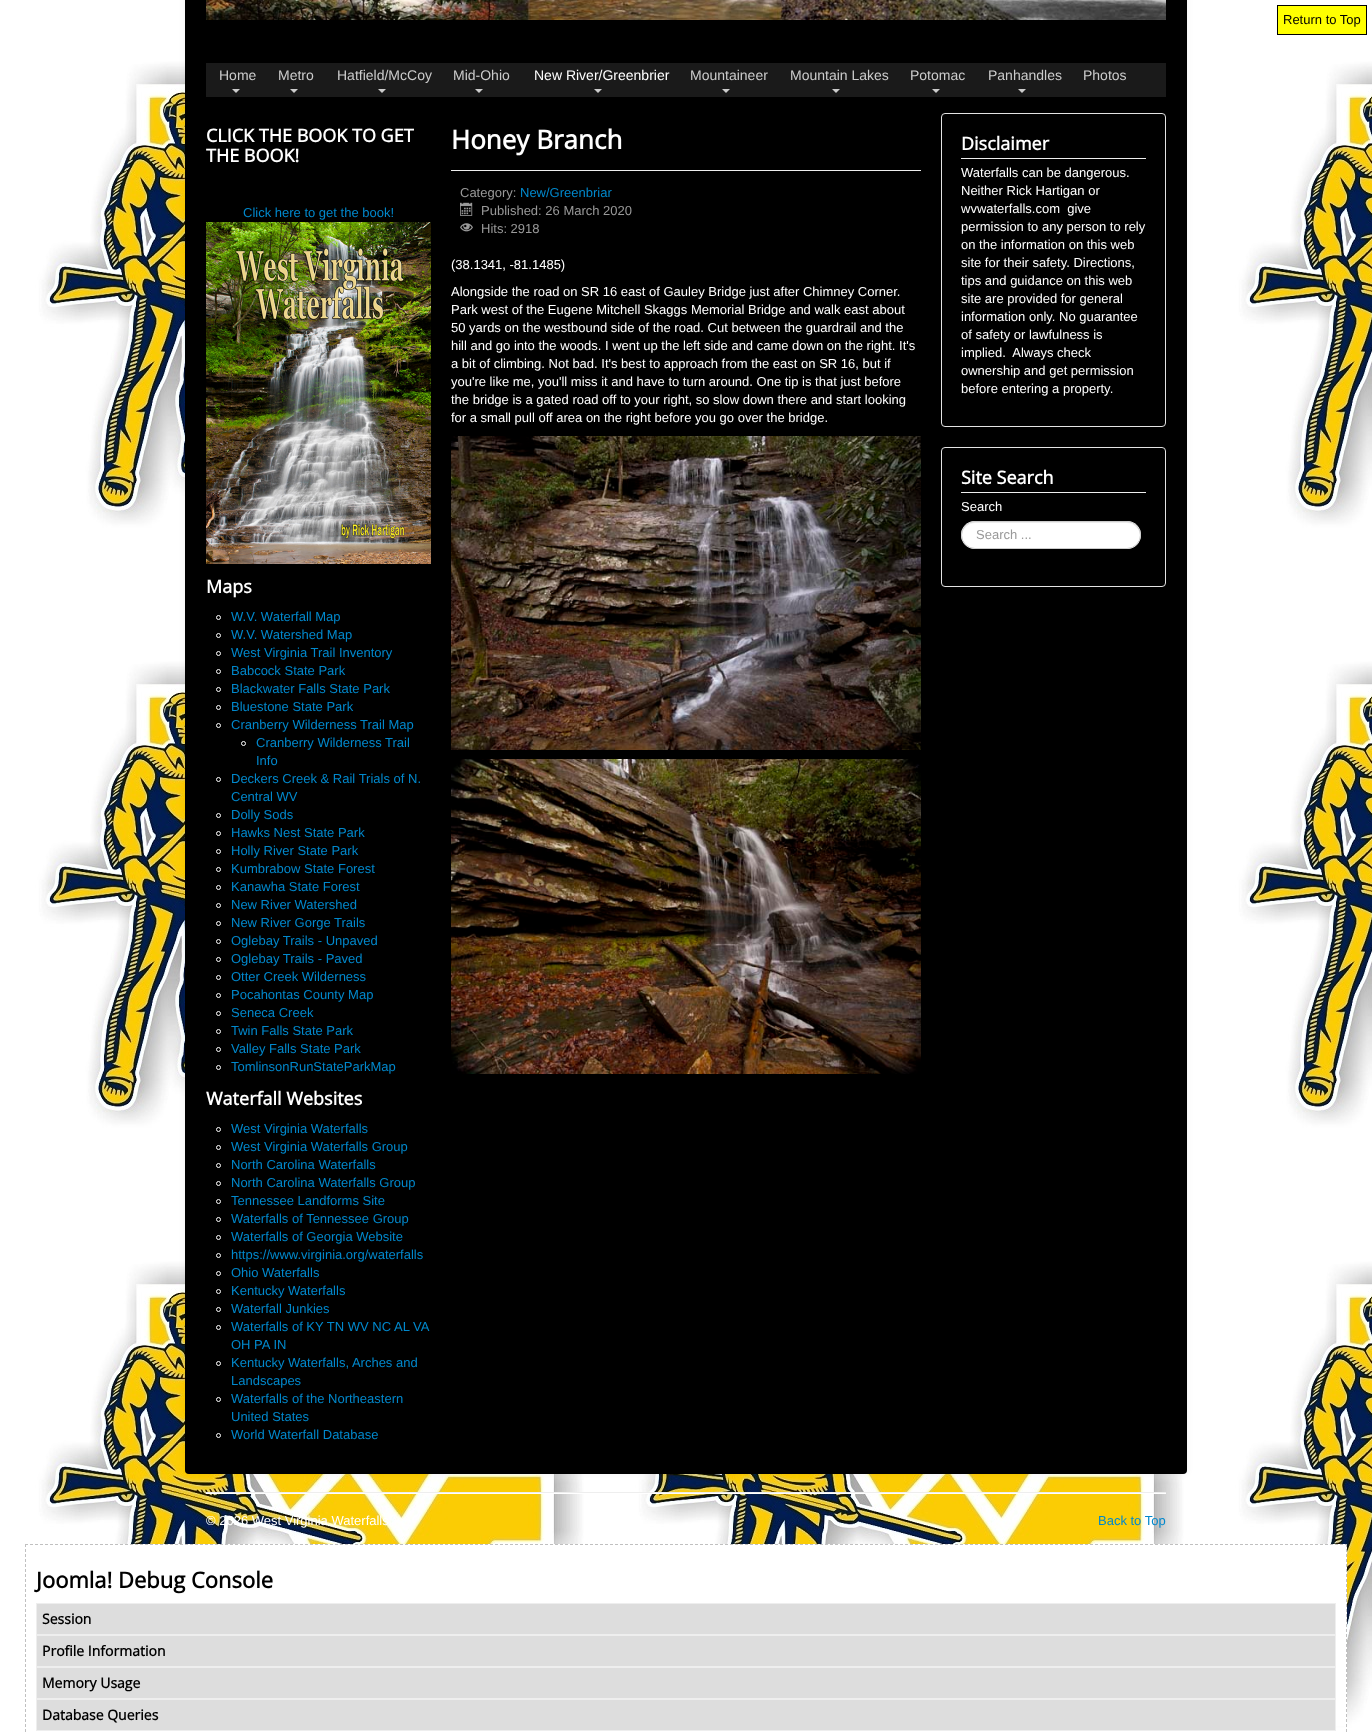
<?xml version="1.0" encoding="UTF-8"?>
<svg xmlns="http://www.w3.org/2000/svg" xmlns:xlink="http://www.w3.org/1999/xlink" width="1372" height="1733">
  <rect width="100%" height="100%" fill="#ffffff" />
  <image x="0" y="0" width="1372" height="1733" xlink:href="image1.png" />
  <rect x="1277.5" y="5.5" width="89" height="29" fill="#ffff00" stroke="#000000" />
  <rect x="185" y="-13" width="1002" height="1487" rx="4" fill="#000000" fill-opacity="0.05" filter="blur(3px)" />
  <rect x="185" y="-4" width="1002" height="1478" rx="4" fill="#000000" />
  <rect x="185.5" y="-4.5" width="1001" height="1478" rx="3.5" fill="none" stroke="#000000" stroke-opacity="0.15" />
  <image x="206" y="0" width="960" height="20" xlink:href="image2.png" />
  <rect x="206" y="63" width="960" height="34" fill="#1a1a1a" />
  <path d="M 232 89 h 8 l -4 4 z" fill="#cccccc" />
  <path d="M 290 89 h 8 l -4 4 z" fill="#cccccc" />
  <path d="M 378 89 h 8 l -4 4 z" fill="#cccccc" />
  <path d="M 475 89 h 8 l -4 4 z" fill="#cccccc" />
  <path d="M 594 89 h 8 l -4 4 z" fill="#cccccc" />
  <path d="M 722 89 h 8 l -4 4 z" fill="#cccccc" />
  <path d="M 832 89 h 8 l -4 4 z" fill="#cccccc" />
  <path d="M 932 89 h 8 l -4 4 z" fill="#cccccc" />
  <path d="M 1018 89 h 8 l -4 4 z" fill="#cccccc" />
  <image x="206" y="222" width="225" height="342" xlink:href="image3.png" />
  <circle cx="218.5" cy="617.5" r="2" fill="none" stroke="#ffffff" />
  <circle cx="218.5" cy="635.5" r="2" fill="none" stroke="#ffffff" />
  <circle cx="218.5" cy="653.5" r="2" fill="none" stroke="#ffffff" />
  <circle cx="218.5" cy="671.5" r="2" fill="none" stroke="#ffffff" />
  <circle cx="218.5" cy="689.5" r="2" fill="none" stroke="#ffffff" />
  <circle cx="218.5" cy="707.5" r="2" fill="none" stroke="#ffffff" />
  <circle cx="218.5" cy="725.5" r="2" fill="none" stroke="#ffffff" />
  <circle cx="243.5" cy="743.5" r="2" fill="none" stroke="#ffffff" />
  <circle cx="218.5" cy="779.5" r="2" fill="none" stroke="#ffffff" />
  <circle cx="218.5" cy="815.5" r="2" fill="none" stroke="#ffffff" />
  <circle cx="218.5" cy="833.5" r="2" fill="none" stroke="#ffffff" />
  <circle cx="218.5" cy="851.5" r="2" fill="none" stroke="#ffffff" />
  <circle cx="218.5" cy="869.5" r="2" fill="none" stroke="#ffffff" />
  <circle cx="218.5" cy="887.5" r="2" fill="none" stroke="#ffffff" />
  <circle cx="218.5" cy="905.5" r="2" fill="none" stroke="#ffffff" />
  <circle cx="218.5" cy="923.5" r="2" fill="none" stroke="#ffffff" />
  <circle cx="218.5" cy="941.5" r="2" fill="none" stroke="#ffffff" />
  <circle cx="218.5" cy="959.5" r="2" fill="none" stroke="#ffffff" />
  <circle cx="218.5" cy="977.5" r="2" fill="none" stroke="#ffffff" />
  <circle cx="218.5" cy="995.5" r="2" fill="none" stroke="#ffffff" />
  <circle cx="218.5" cy="1013.5" r="2" fill="none" stroke="#ffffff" />
  <circle cx="218.5" cy="1031.5" r="2" fill="none" stroke="#ffffff" />
  <circle cx="218.5" cy="1049.5" r="2" fill="none" stroke="#ffffff" />
  <circle cx="218.5" cy="1067.5" r="2" fill="none" stroke="#ffffff" />
  <circle cx="218.5" cy="1129.5" r="2" fill="none" stroke="#ffffff" />
  <circle cx="218.5" cy="1147.5" r="2" fill="none" stroke="#ffffff" />
  <circle cx="218.5" cy="1165.5" r="2" fill="none" stroke="#ffffff" />
  <circle cx="218.5" cy="1183.5" r="2" fill="none" stroke="#ffffff" />
  <circle cx="218.5" cy="1201.5" r="2" fill="none" stroke="#ffffff" />
  <circle cx="218.5" cy="1219.5" r="2" fill="none" stroke="#ffffff" />
  <circle cx="218.5" cy="1237.5" r="2" fill="none" stroke="#ffffff" />
  <circle cx="218.5" cy="1255.5" r="2" fill="none" stroke="#ffffff" />
  <circle cx="218.5" cy="1273.5" r="2" fill="none" stroke="#ffffff" />
  <circle cx="218.5" cy="1291.5" r="2" fill="none" stroke="#ffffff" />
  <circle cx="218.5" cy="1309.5" r="2" fill="none" stroke="#ffffff" />
  <circle cx="218.5" cy="1327.5" r="2" fill="none" stroke="#ffffff" />
  <circle cx="218.5" cy="1363.5" r="2" fill="none" stroke="#ffffff" />
  <circle cx="218.5" cy="1399.5" r="2" fill="none" stroke="#ffffff" />
  <circle cx="218.5" cy="1435.5" r="2" fill="none" stroke="#ffffff" />
  <rect x="451" y="170" width="470" height="1" fill="#eeeeee" />
  <image x="460" y="202" width="13" height="14" xlink:href="image4.png" />
  <image x="460" y="223" width="13" height="9" xlink:href="image5.png" />
  <image x="451" y="436" width="470" height="314" xlink:href="image6.png" />
  <image x="451" y="759" width="470" height="315" xlink:href="image7.png" />
  <rect x="941.5" y="113.5" width="224" height="313" rx="3.5" fill="none" stroke="#e3e3e3" />
  <rect x="961" y="158" width="185" height="1" fill="#eeeeee" />
  <rect x="941.5" y="447.5" width="224" height="139" rx="3.5" fill="none" stroke="#e3e3e3" />
  <rect x="961" y="492" width="185" height="1" fill="#eeeeee" />
  <rect x="961" y="521" width="180" height="28" rx="14" fill="#ffffff" />
  <path d="M 975 523 h 152 c 7 0 13 6 13 13 c 1 -20 -29 -14 -38 -14 h -102 c -9 0 -39 -6 -38 14 c 0 -7 6 -13 13 -13 z" fill="#ececec" />
  <rect x="961.5" y="521.5" width="179" height="27" rx="13.5" fill="none" stroke="#cccccc" />
  <rect x="206" y="1492" width="960" height="1" fill="#eeeeee" />
  <rect x="206" y="1493" width="960" height="1" fill="#ffffff" />
  <rect x="87" y="1544" width="1260" height="182" fill="#ffffff" />
  <path d="M 25 1544.5 h 1322" fill="none" stroke="#c0c0c0" stroke-dasharray="3 2" />
  <path d="M 1346.5 1544 v 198" fill="none" stroke="#c0c0c0" stroke-dasharray="3 2" />
  <path d="M 25.5 1544 v 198" fill="none" stroke="#c0c0c0" stroke-dasharray="3 2" />
  <rect x="36.5" y="1603.5" width="1299" height="31" fill="#dddddd" stroke="#eeeeee" />
  <rect x="36.5" y="1635.5" width="1299" height="31" fill="#dddddd" stroke="#eeeeee" />
  <rect x="36.5" y="1667.5" width="1299" height="31" fill="#dddddd" stroke="#eeeeee" />
  <rect x="36.5" y="1699.5" width="1299" height="31" fill="#dddddd" stroke="#eeeeee" />
  <text x="1283" y="24" style="font-family: Liberation Sans; font-size: 13px; fill: #000000">Return to Top</text>
  <text x="219" y="80" style="font-family: Liberation Sans; font-size: 14px; fill: #cccccc">Home</text>
  <text x="278" y="80" style="font-family: Liberation Sans; font-size: 14px; fill: #cccccc">Metro</text>
  <text x="337" y="80" style="font-family: Liberation Sans; font-size: 14px; fill: #cccccc">Hatfield/McCoy</text>
  <text x="453" y="80" style="font-family: Liberation Sans; font-size: 14px; fill: #cccccc">Mid-Ohio</text>
  <text x="534" y="80" style="font-family: Liberation Sans; font-size: 14px; fill: #ffffff">New River/Greenbrier</text>
  <text x="690" y="80" style="font-family: Liberation Sans; font-size: 14px; fill: #cccccc">Mountaineer</text>
  <text x="790" y="80" style="font-family: Liberation Sans; font-size: 14px; fill: #cccccc">Mountain Lakes</text>
  <text x="910" y="80" style="font-family: Liberation Sans; font-size: 14px; fill: #cccccc">Potomac</text>
  <text x="988" y="80" style="font-family: Liberation Sans; font-size: 14px; fill: #cccccc">Panhandles</text>
  <text x="1083" y="80" style="font-family: Liberation Sans; font-size: 14px; fill: #cccccc">Photos</text>
  <text x="206" y="142" style="font-family: Open Sans; font-size: 18px; font-weight: bold; fill: #ffffff">CLICK THE BOOK TO GET</text>
  <text x="206" y="162" style="font-family: Open Sans; font-size: 18px; font-weight: bold; fill: #ffffff">THE BOOK!</text>
  <text x="243" y="217" style="font-family: Liberation Sans; font-size: 13px; fill: #0088cc">Click here to get the book!</text>
  <text x="206" y="593" style="font-family: Open Sans; font-size: 18px; font-weight: bold; fill: #ffffff">Maps</text>
  <text x="231" y="621" style="font-family: Liberation Sans; font-size: 13px; fill: #0088cc">W.V. Waterfall Map</text>
  <text x="231" y="639" style="font-family: Liberation Sans; font-size: 13px; fill: #0088cc">W.V. Watershed Map</text>
  <text x="231" y="657" style="font-family: Liberation Sans; font-size: 13px; fill: #0088cc">West Virginia Trail Inventory</text>
  <text x="231" y="675" style="font-family: Liberation Sans; font-size: 13px; fill: #0088cc">Babcock State Park</text>
  <text x="231" y="693" style="font-family: Liberation Sans; font-size: 13px; fill: #0088cc">Blackwater Falls State Park</text>
  <text x="231" y="711" style="font-family: Liberation Sans; font-size: 13px; fill: #0088cc">Bluestone State Park</text>
  <text x="231" y="729" style="font-family: Liberation Sans; font-size: 13px; fill: #0088cc">Cranberry Wilderness Trail Map</text>
  <text x="256" y="747" style="font-family: Liberation Sans; font-size: 13px; fill: #0088cc">Cranberry Wilderness Trail</text>
  <text x="256" y="765" style="font-family: Liberation Sans; font-size: 13px; fill: #0088cc">Info</text>
  <text x="231" y="783" style="font-family: Liberation Sans; font-size: 13px; fill: #0088cc">Deckers Creek &amp; Rail Trials of N.</text>
  <text x="231" y="801" style="font-family: Liberation Sans; font-size: 13px; fill: #0088cc">Central WV</text>
  <text x="231" y="819" style="font-family: Liberation Sans; font-size: 13px; fill: #0088cc">Dolly Sods</text>
  <text x="231" y="837" style="font-family: Liberation Sans; font-size: 13px; fill: #0088cc">Hawks Nest State Park</text>
  <text x="231" y="855" style="font-family: Liberation Sans; font-size: 13px; fill: #0088cc">Holly River State Park</text>
  <text x="231" y="873" style="font-family: Liberation Sans; font-size: 13px; fill: #0088cc">Kumbrabow State Forest</text>
  <text x="231" y="891" style="font-family: Liberation Sans; font-size: 13px; fill: #0088cc">Kanawha State Forest</text>
  <text x="231" y="909" style="font-family: Liberation Sans; font-size: 13px; fill: #0088cc">New River Watershed</text>
  <text x="231" y="927" style="font-family: Liberation Sans; font-size: 13px; fill: #0088cc">New River Gorge Trails</text>
  <text x="231" y="945" style="font-family: Liberation Sans; font-size: 13px; fill: #0088cc">Oglebay Trails - Unpaved</text>
  <text x="231" y="963" style="font-family: Liberation Sans; font-size: 13px; fill: #0088cc">Oglebay Trails - Paved</text>
  <text x="231" y="981" style="font-family: Liberation Sans; font-size: 13px; fill: #0088cc">Otter Creek Wilderness</text>
  <text x="231" y="999" style="font-family: Liberation Sans; font-size: 13px; fill: #0088cc">Pocahontas County Map</text>
  <text x="231" y="1017" style="font-family: Liberation Sans; font-size: 13px; fill: #0088cc">Seneca Creek</text>
  <text x="231" y="1035" style="font-family: Liberation Sans; font-size: 13px; fill: #0088cc">Twin Falls State Park</text>
  <text x="231" y="1053" style="font-family: Liberation Sans; font-size: 13px; fill: #0088cc">Valley Falls State Park</text>
  <text x="231" y="1071" style="font-family: Liberation Sans; font-size: 13px; fill: #0088cc">TomlinsonRunStateParkMap</text>
  <text x="206" y="1105" style="font-family: Open Sans; font-size: 18px; font-weight: bold; fill: #ffffff">Waterfall Websites</text>
  <text x="231" y="1133" style="font-family: Liberation Sans; font-size: 13px; fill: #0088cc">West Virginia Waterfalls</text>
  <text x="231" y="1151" style="font-family: Liberation Sans; font-size: 13px; fill: #0088cc">West Virginia Waterfalls Group</text>
  <text x="231" y="1169" style="font-family: Liberation Sans; font-size: 13px; fill: #0088cc">North Carolina Waterfalls</text>
  <text x="231" y="1187" style="font-family: Liberation Sans; font-size: 13px; fill: #0088cc">North Carolina Waterfalls Group</text>
  <text x="231" y="1205" style="font-family: Liberation Sans; font-size: 13px; fill: #0088cc">Tennessee Landforms Site</text>
  <text x="231" y="1223" style="font-family: Liberation Sans; font-size: 13px; fill: #0088cc">Waterfalls of Tennessee Group</text>
  <text x="231" y="1241" style="font-family: Liberation Sans; font-size: 13px; fill: #0088cc">Waterfalls of Georgia Website</text>
  <text x="231" y="1259" style="font-family: Liberation Sans; font-size: 13px; fill: #0088cc">https://www.virginia.org/waterfalls</text>
  <text x="231" y="1277" style="font-family: Liberation Sans; font-size: 13px; fill: #0088cc">Ohio Waterfalls</text>
  <text x="231" y="1295" style="font-family: Liberation Sans; font-size: 13px; fill: #0088cc">Kentucky Waterfalls</text>
  <text x="231" y="1313" style="font-family: Liberation Sans; font-size: 13px; fill: #0088cc">Waterfall Junkies</text>
  <text x="231" y="1331" style="font-family: Liberation Sans; font-size: 13px; fill: #0088cc">Waterfalls of KY TN WV NC AL VA</text>
  <text x="231" y="1349" style="font-family: Liberation Sans; font-size: 13px; fill: #0088cc">OH PA IN</text>
  <text x="231" y="1367" style="font-family: Liberation Sans; font-size: 13px; fill: #0088cc">Kentucky Waterfalls, Arches and</text>
  <text x="231" y="1385" style="font-family: Liberation Sans; font-size: 13px; fill: #0088cc">Landscapes</text>
  <text x="231" y="1403" style="font-family: Liberation Sans; font-size: 13px; fill: #0088cc">Waterfalls of the Northeastern</text>
  <text x="231" y="1421" style="font-family: Liberation Sans; font-size: 13px; fill: #0088cc">United States</text>
  <text x="231" y="1439" style="font-family: Liberation Sans; font-size: 13px; fill: #0088cc">World Waterfall Database</text>
  <text x="451" y="149" style="font-family: Open Sans; font-size: 26px; font-weight: bold; fill: #ffffff">Honey Branch</text>
  <text x="460" y="197" style="font-family: Liberation Sans; font-size: 13px; fill: #999999">Category:</text>
  <text x="520" y="197" style="font-family: Liberation Sans; font-size: 13px; fill: #0088cc">New/Greenbriar</text>
  <text x="481" y="215" style="font-family: Liberation Sans; font-size: 13px; fill: #999999">Published: 26 March 2020</text>
  <text x="481" y="233" style="font-family: Liberation Sans; font-size: 13px; fill: #999999">Hits: 2918</text>
  <text x="451" y="269" style="font-family: Liberation Sans; font-size: 13px; fill: #ffffff">(38.1341, -81.1485)</text>
  <text x="451" y="296" style="font-family: Liberation Sans; font-size: 13px; fill: #ffffff">Alongside the road on SR 16 east of Gauley Bridge just after Chimney Corner.</text>
  <text x="451" y="314" style="font-family: Liberation Sans; font-size: 13px; fill: #ffffff">Park west of the Eugene Mitchell Skaggs Memorial Bridge and walk east about</text>
  <text x="451" y="332" style="font-family: Liberation Sans; font-size: 13px; fill: #ffffff">50 yards on the westbound side of the road. Cut between the guardrail and the</text>
  <text x="451" y="350" style="font-family: Liberation Sans; font-size: 13px; fill: #ffffff">hill and go into the woods. I went up the left side and came down on the right. It's</text>
  <text x="451" y="368" style="font-family: Liberation Sans; font-size: 13px; fill: #ffffff">a bit of climbing. Not bad. It's best to approach from the east on SR 16, but if</text>
  <text x="451" y="386" style="font-family: Liberation Sans; font-size: 13px; fill: #ffffff">you're like me, you'll miss it and have to turn around. One tip is that just before</text>
  <text x="451" y="404" style="font-family: Liberation Sans; font-size: 13px; fill: #ffffff">the bridge is a gated road off to your right, so slow down there and start looking</text>
  <text x="451" y="422" style="font-family: Liberation Sans; font-size: 13px; fill: #ffffff">for a small pull off area on the right before you go over the bridge.</text>
  <text x="961" y="150" style="font-family: Open Sans; font-size: 18px; font-weight: bold; fill: #ffffff">Disclaimer</text>
  <text x="961" y="177" style="font-family: Liberation Sans; font-size: 13px; fill: #ffffff">Waterfalls can be dangerous.</text>
  <text x="961" y="195" style="font-family: Liberation Sans; font-size: 13px; fill: #ffffff">Neither Rick Hartigan or</text>
  <text x="961" y="213" style="font-family: Liberation Sans; font-size: 13px; fill: #ffffff" xml:space="preserve">wvwaterfalls.com  give</text>
  <text x="961" y="231" style="font-family: Liberation Sans; font-size: 13px; fill: #ffffff">permission to any person to rely</text>
  <text x="961" y="249" style="font-family: Liberation Sans; font-size: 13px; fill: #ffffff">on the information on this web</text>
  <text x="961" y="267" style="font-family: Liberation Sans; font-size: 13px; fill: #ffffff">site for their safety. Directions,</text>
  <text x="961" y="285" style="font-family: Liberation Sans; font-size: 13px; fill: #ffffff">tips and guidance on this web</text>
  <text x="961" y="303" style="font-family: Liberation Sans; font-size: 13px; fill: #ffffff">site are provided for general</text>
  <text x="961" y="321" style="font-family: Liberation Sans; font-size: 13px; fill: #ffffff">information only. No guarantee</text>
  <text x="961" y="339" style="font-family: Liberation Sans; font-size: 13px; fill: #ffffff">of safety or lawfulness is</text>
  <text x="961" y="357" style="font-family: Liberation Sans; font-size: 13px; fill: #ffffff" xml:space="preserve">implied.  Always check</text>
  <text x="961" y="375" style="font-family: Liberation Sans; font-size: 13px; fill: #ffffff">ownership and get permission</text>
  <text x="961" y="393" style="font-family: Liberation Sans; font-size: 13px; fill: #ffffff">before entering a property.</text>
  <text x="961" y="484" style="font-family: Open Sans; font-size: 18px; font-weight: bold; fill: #ffffff">Site Search</text>
  <text x="961" y="511" style="font-family: Liberation Sans; font-size: 13px; fill: #ffffff">Search</text>
  <text x="976" y="539" style="font-family: Liberation Sans; font-size: 13px; fill: #999999">Search ...</text>
  <text x="206" y="1525" style="font-family: Liberation Sans; font-size: 13px; fill: #ffffff">© 2026 West Virginia Waterfalls</text>
  <text x="1098" y="1525" style="font-family: Liberation Sans; font-size: 13px; fill: #0088cc">Back to Top</text>
  <text x="36" y="1588" style="font-family: Open Sans; font-size: 22px; font-weight: bold; fill: #000000">Joomla! Debug Console</text>
  <text x="42" y="1624" style="font-family: Open Sans; font-size: 14px; font-weight: bold; fill: #000000">Session</text>
  <text x="42" y="1656" style="font-family: Open Sans; font-size: 14px; font-weight: bold; fill: #000000">Profile Information</text>
  <text x="42" y="1688" style="font-family: Open Sans; font-size: 14px; font-weight: bold; fill: #000000">Memory Usage</text>
  <text x="42" y="1720" style="font-family: Open Sans; font-size: 14px; font-weight: bold; fill: #000000">Database Queries</text>
</svg>
